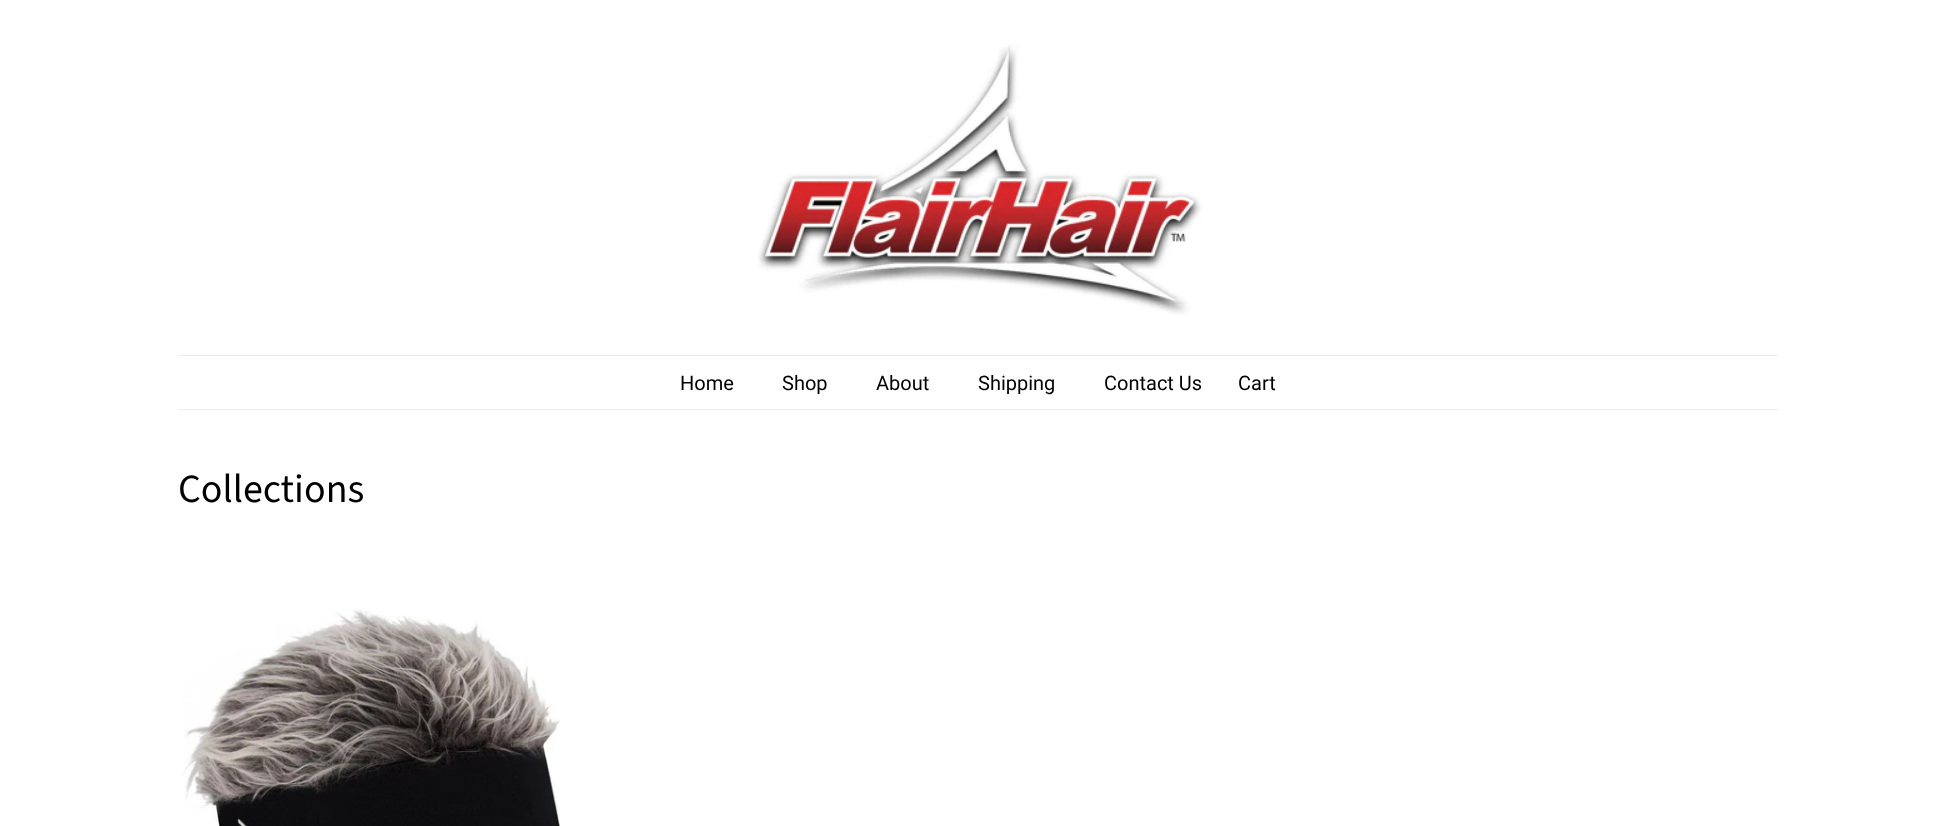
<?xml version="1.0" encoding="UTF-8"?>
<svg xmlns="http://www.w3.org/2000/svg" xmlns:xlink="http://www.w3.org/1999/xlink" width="1955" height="826">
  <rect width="100%" height="100%" fill="#ffffff" />
  <image x="758" y="44" width="444" height="271" xlink:href="image1.png" />
  <rect x="178" y="355" width="1600" height="1" fill="#ebebeb" />
  <rect x="178" y="409" width="1600" height="1" fill="#ebebeb" />
  <image x="182" y="609" width="378" height="217" xlink:href="image2.png" />
  <text x="680" y="390" style="font-family: Roboto; font-size: 20px; fill: #000000">Home</text>
  <text x="782" y="390" style="font-family: Roboto; font-size: 20px; fill: #000000">Shop</text>
  <text x="876" y="390" style="font-family: Roboto; font-size: 20px; fill: #000000">About</text>
  <text x="978" y="390" style="font-family: Roboto; font-size: 20px; fill: #000000">Shipping</text>
  <text x="1104" y="390" style="font-family: Roboto; font-size: 20px; fill: #000000">Contact Us</text>
  <text x="1238" y="390" style="font-family: Roboto; font-size: 20px; fill: #000000">Cart</text>
  <text x="178" y="502" style="font-family: Source Sans Pro; font-size: 40px; fill: #000000">Collections</text>
</svg>
